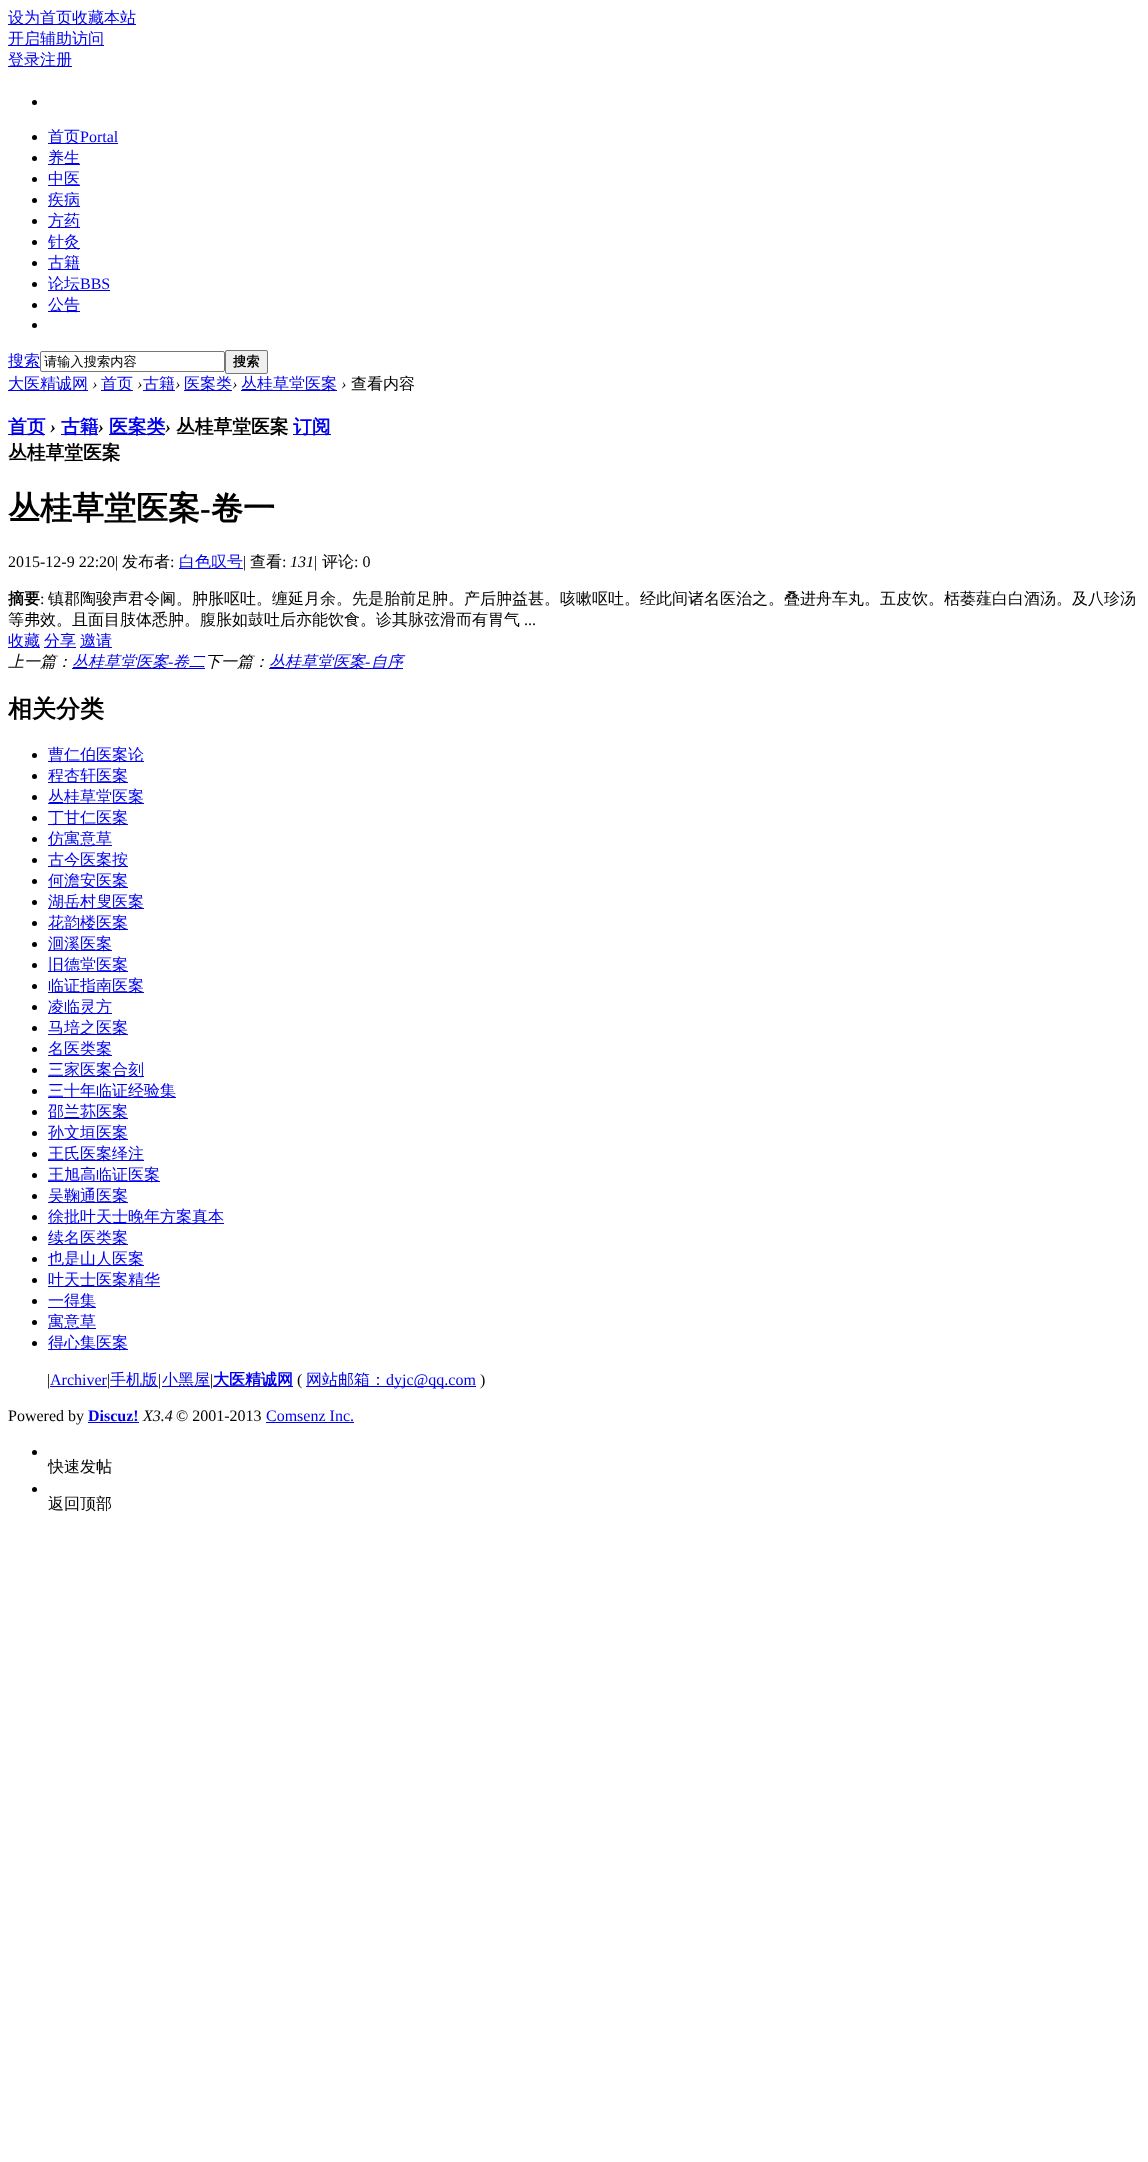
<?xml version="1.0" encoding="UTF-8"?>
<svg xmlns="http://www.w3.org/2000/svg" xmlns:xlink="http://www.w3.org/1999/xlink" width="1148" height="2162">
  <rect width="100%" height="100%" fill="#ffffff" />
  <rect x="8" y="24" width="128" height="1" fill="#0000ee" />
  <rect x="8" y="45" width="96" height="1" fill="#0000ee" />
  <rect x="8" y="66" width="64" height="1" fill="#0000ee" />
  <circle cx="34.5" cy="102.5" r="2.5" fill="#000000" />
  <circle cx="34.5" cy="137.5" r="2.5" fill="#000000" />
  <rect x="48" y="143" width="70" height="1" fill="#0000ee" />
  <circle cx="34.5" cy="158.5" r="2.5" fill="#000000" />
  <rect x="48" y="164" width="32" height="1" fill="#0000ee" />
  <circle cx="34.5" cy="179.5" r="2.5" fill="#000000" />
  <rect x="48" y="185" width="32" height="1" fill="#0000ee" />
  <circle cx="34.5" cy="200.5" r="2.5" fill="#000000" />
  <rect x="48" y="206" width="32" height="1" fill="#0000ee" />
  <circle cx="34.5" cy="221.5" r="2.5" fill="#000000" />
  <rect x="48" y="227" width="32" height="1" fill="#0000ee" />
  <circle cx="34.5" cy="242.5" r="2.5" fill="#000000" />
  <rect x="48" y="248" width="32" height="1" fill="#0000ee" />
  <circle cx="34.5" cy="263.5" r="2.5" fill="#000000" />
  <rect x="48" y="269" width="32" height="1" fill="#0000ee" />
  <circle cx="34.5" cy="284.5" r="2.5" fill="#000000" />
  <rect x="48" y="290" width="62" height="1" fill="#0000ee" />
  <circle cx="34.5" cy="305.5" r="2.5" fill="#000000" />
  <rect x="48" y="311" width="32" height="1" fill="#0000ee" />
  <circle cx="34.5" cy="325.5" r="2.5" fill="#000000" />
  <rect x="8" y="367" width="32" height="1" fill="#0000ee" />
  <rect x="40.5" y="351.5" width="184" height="20" rx="1.5" fill="none" stroke="#767676" />
  <rect x="225.5" y="350.5" width="42" height="23" rx="1.5" fill="#efefef" stroke="#767676" />
  <rect x="8" y="390" width="80" height="1" fill="#0000ee" />
  <rect x="101" y="390" width="32" height="1" fill="#0000ee" />
  <rect x="143" y="390" width="32" height="1" fill="#0000ee" />
  <rect x="184" y="390" width="48" height="1" fill="#0000ee" />
  <rect x="241" y="390" width="96" height="1" fill="#0000ee" />
  <rect x="8" y="434" width="37" height="1" fill="#0000ee" />
  <rect x="61" y="434" width="37" height="1" fill="#0000ee" />
  <rect x="109" y="434" width="56" height="1" fill="#0000ee" />
  <rect x="293" y="434" width="38" height="1" fill="#0000ee" />
  <rect x="179" y="568" width="64" height="1" fill="#0000ee" />
  <rect x="8" y="647" width="32" height="1" fill="#0000ee" />
  <rect x="44" y="647" width="32" height="1" fill="#0000ee" />
  <rect x="80" y="647" width="32" height="1" fill="#0000ee" />
  <rect x="72" y="668" width="133" height="1" fill="#0000ee" />
  <rect x="269" y="668" width="134" height="1" fill="#0000ee" />
  <circle cx="34.5" cy="755.5" r="2.5" fill="#000000" />
  <rect x="48" y="761" width="96" height="1" fill="#0000ee" />
  <circle cx="34.5" cy="776.5" r="2.5" fill="#000000" />
  <rect x="48" y="782" width="80" height="1" fill="#0000ee" />
  <circle cx="34.5" cy="797.5" r="2.5" fill="#000000" />
  <rect x="48" y="803" width="96" height="1" fill="#0000ee" />
  <circle cx="34.5" cy="818.5" r="2.5" fill="#000000" />
  <rect x="48" y="824" width="80" height="1" fill="#0000ee" />
  <circle cx="34.5" cy="839.5" r="2.5" fill="#000000" />
  <rect x="48" y="845" width="64" height="1" fill="#0000ee" />
  <circle cx="34.5" cy="860.5" r="2.5" fill="#000000" />
  <rect x="48" y="866" width="80" height="1" fill="#0000ee" />
  <circle cx="34.5" cy="881.5" r="2.5" fill="#000000" />
  <rect x="48" y="887" width="80" height="1" fill="#0000ee" />
  <circle cx="34.5" cy="902.5" r="2.5" fill="#000000" />
  <rect x="48" y="908" width="96" height="1" fill="#0000ee" />
  <circle cx="34.5" cy="923.5" r="2.5" fill="#000000" />
  <rect x="48" y="929" width="80" height="1" fill="#0000ee" />
  <circle cx="34.5" cy="944.5" r="2.5" fill="#000000" />
  <rect x="48" y="950" width="64" height="1" fill="#0000ee" />
  <circle cx="34.5" cy="965.5" r="2.5" fill="#000000" />
  <rect x="48" y="971" width="80" height="1" fill="#0000ee" />
  <circle cx="34.5" cy="986.5" r="2.5" fill="#000000" />
  <rect x="48" y="992" width="96" height="1" fill="#0000ee" />
  <circle cx="34.5" cy="1007.5" r="2.5" fill="#000000" />
  <rect x="48" y="1013" width="64" height="1" fill="#0000ee" />
  <circle cx="34.5" cy="1028.5" r="2.5" fill="#000000" />
  <rect x="48" y="1034" width="80" height="1" fill="#0000ee" />
  <circle cx="34.5" cy="1049.5" r="2.5" fill="#000000" />
  <rect x="48" y="1055" width="64" height="1" fill="#0000ee" />
  <circle cx="34.5" cy="1070.5" r="2.5" fill="#000000" />
  <rect x="48" y="1076" width="96" height="1" fill="#0000ee" />
  <circle cx="34.5" cy="1091.5" r="2.5" fill="#000000" />
  <rect x="48" y="1097" width="128" height="1" fill="#0000ee" />
  <circle cx="34.5" cy="1112.5" r="2.5" fill="#000000" />
  <rect x="48" y="1118" width="80" height="1" fill="#0000ee" />
  <circle cx="34.5" cy="1133.5" r="2.5" fill="#000000" />
  <rect x="48" y="1139" width="80" height="1" fill="#0000ee" />
  <circle cx="34.5" cy="1154.5" r="2.5" fill="#000000" />
  <rect x="48" y="1160" width="96" height="1" fill="#0000ee" />
  <circle cx="34.5" cy="1175.5" r="2.5" fill="#000000" />
  <rect x="48" y="1181" width="112" height="1" fill="#0000ee" />
  <circle cx="34.5" cy="1196.5" r="2.5" fill="#000000" />
  <rect x="48" y="1202" width="80" height="1" fill="#0000ee" />
  <circle cx="34.5" cy="1217.5" r="2.5" fill="#000000" />
  <rect x="48" y="1223" width="176" height="1" fill="#0000ee" />
  <circle cx="34.5" cy="1238.5" r="2.5" fill="#000000" />
  <rect x="48" y="1244" width="80" height="1" fill="#0000ee" />
  <circle cx="34.5" cy="1259.5" r="2.5" fill="#000000" />
  <rect x="48" y="1265" width="96" height="1" fill="#0000ee" />
  <circle cx="34.5" cy="1280.5" r="2.5" fill="#000000" />
  <rect x="48" y="1286" width="112" height="1" fill="#0000ee" />
  <circle cx="34.5" cy="1301.5" r="2.5" fill="#000000" />
  <rect x="48" y="1307" width="48" height="1" fill="#0000ee" />
  <circle cx="34.5" cy="1322.5" r="2.5" fill="#000000" />
  <rect x="48" y="1328" width="48" height="1" fill="#0000ee" />
  <circle cx="34.5" cy="1343.5" r="2.5" fill="#000000" />
  <rect x="48" y="1349" width="80" height="1" fill="#0000ee" />
  <rect x="50" y="1386" width="57" height="1" fill="#0000ee" />
  <rect x="110" y="1386" width="48" height="1" fill="#0000ee" />
  <rect x="162" y="1386" width="48" height="1" fill="#0000ee" />
  <rect x="213" y="1386" width="80" height="1" fill="#0000ee" />
  <rect x="306" y="1386" width="170" height="1" fill="#0000ee" />
  <rect x="88" y="1422" width="51" height="1" fill="#0000ee" />
  <rect x="266" y="1422" width="88" height="1" fill="#0000ee" />
  <circle cx="34.5" cy="1452.5" r="2.5" fill="#000000" />
  <circle cx="34.5" cy="1489.5" r="2.5" fill="#000000" />
  <text x="8" y="23" style="font-family: WenQuanYi Zen Hei; font-size: 16px; font-weight: 500; fill: #0000ee">设为首页收藏本站</text>
  <text x="8" y="44" style="font-family: WenQuanYi Zen Hei; font-size: 16px; font-weight: 500; fill: #0000ee">开启辅助访问</text>
  <text x="8" y="65" style="font-family: WenQuanYi Zen Hei; font-size: 16px; font-weight: 500; fill: #0000ee">登录注册</text>
  <text x="48" y="142" style="font-family: WenQuanYi Zen Hei; font-size: 16px; font-weight: 500; fill: #0000ee">首页</text>
  <text x="80" y="142" style="font-family: Liberation Serif; font-size: 16px; fill: #0000ee">Portal</text>
  <text x="48" y="163" style="font-family: WenQuanYi Zen Hei; font-size: 16px; font-weight: 500; fill: #0000ee">养生</text>
  <text x="48" y="184" style="font-family: WenQuanYi Zen Hei; font-size: 16px; font-weight: 500; fill: #0000ee">中医</text>
  <text x="48" y="205" style="font-family: WenQuanYi Zen Hei; font-size: 16px; font-weight: 500; fill: #0000ee">疾病</text>
  <text x="48" y="226" style="font-family: WenQuanYi Zen Hei; font-size: 16px; font-weight: 500; fill: #0000ee">方药</text>
  <text x="48" y="247" style="font-family: WenQuanYi Zen Hei; font-size: 16px; font-weight: 500; fill: #0000ee">针灸</text>
  <text x="48" y="268" style="font-family: WenQuanYi Zen Hei; font-size: 16px; font-weight: 500; fill: #0000ee">古籍</text>
  <text x="48" y="289" style="font-family: WenQuanYi Zen Hei; font-size: 16px; font-weight: 500; fill: #0000ee">论坛</text>
  <text x="80" y="289" style="font-family: Liberation Serif; font-size: 16px; fill: #0000ee">BBS</text>
  <text x="48" y="310" style="font-family: WenQuanYi Zen Hei; font-size: 16px; font-weight: 500; fill: #0000ee">公告</text>
  <text x="8" y="366" style="font-family: WenQuanYi Zen Hei; font-size: 16px; font-weight: 500; fill: #0000ee">搜索</text>
  <text x="44" y="366" style="font-family: WenQuanYi Zen Hei; font-size: 13.25px; font-weight: 500; fill: #000000">请输入搜索内容</text>
  <text x="233" y="366" style="font-family: WenQuanYi Zen Hei; font-size: 13.25px; font-weight: bold; fill: #000000">搜索</text>
  <text x="8" y="389" style="font-family: WenQuanYi Zen Hei; font-size: 16px; font-weight: 500; fill: #0000ee">大医精诚网</text>
  <text x="92" y="389" style="font-family: Liberation Serif; font-size: 16px; font-style: italic; fill: #000000">›</text>
  <text x="101" y="389" style="font-family: WenQuanYi Zen Hei; font-size: 16px; font-weight: 500; fill: #0000ee">首页</text>
  <text x="137" y="389" style="font-family: Liberation Serif; font-size: 16px; font-style: italic; fill: #000000">›</text>
  <text x="143" y="389" style="font-family: WenQuanYi Zen Hei; font-size: 16px; font-weight: 500; fill: #0000ee">古籍</text>
  <text x="175" y="389" style="font-family: Liberation Serif; font-size: 16px; font-style: italic; fill: #000000">›</text>
  <text x="184" y="389" style="font-family: WenQuanYi Zen Hei; font-size: 16px; font-weight: 500; fill: #0000ee">医案类</text>
  <text x="232" y="389" style="font-family: Liberation Serif; font-size: 16px; font-style: italic; fill: #000000">›</text>
  <text x="241" y="389" style="font-family: WenQuanYi Zen Hei; font-size: 16px; font-weight: 500; fill: #0000ee">丛桂草堂医案</text>
  <text x="341" y="389" style="font-family: Liberation Serif; font-size: 16px; font-style: italic; fill: #000000">›</text>
  <text x="351" y="389" style="font-family: WenQuanYi Zen Hei; font-size: 16px; font-weight: 500; fill: #000000">查看内容</text>
  <text x="8" y="433" style="font-family: WenQuanYi Zen Hei; font-size: 18.75px; font-weight: bold; fill: #0000ee">首页</text>
  <text x="50" y="433" style="font-family: Liberation Serif; font-size: 18.75px; font-weight: bold; font-style: italic; fill: #000000">›</text>
  <text x="61" y="433" style="font-family: WenQuanYi Zen Hei; font-size: 18.75px; font-weight: bold; fill: #0000ee">古籍</text>
  <text x="98" y="433" style="font-family: Liberation Serif; font-size: 18.75px; font-weight: bold; font-style: italic; fill: #000000">›</text>
  <text x="109" y="433" style="font-family: WenQuanYi Zen Hei; font-size: 18.75px; font-weight: bold; fill: #0000ee">医案类</text>
  <text x="165" y="433" style="font-family: Liberation Serif; font-size: 18.75px; font-weight: bold; font-style: italic; fill: #000000">›</text>
  <text x="176" y="433" style="font-family: WenQuanYi Zen Hei; font-size: 18.75px; font-weight: bold; fill: #000000">丛桂草堂医案</text>
  <text x="293" y="433" style="font-family: WenQuanYi Zen Hei; font-size: 18.75px; font-weight: bold; fill: #0000ee">订阅</text>
  <text x="8" y="459" style="font-family: WenQuanYi Zen Hei; font-size: 18.75px; font-weight: bold; fill: #000000">丛桂草堂医案</text>
  <text x="8" y="519" style="font-family: WenQuanYi Zen Hei; font-size: 32px; font-weight: bold; fill: #000000">丛桂草堂医案</text>
  <text x="200" y="519" style="font-family: Liberation Serif; font-size: 32px; font-weight: bold; fill: #000000">-</text>
  <text x="211" y="519" style="font-family: WenQuanYi Zen Hei; font-size: 32px; font-weight: bold; fill: #000000">卷一</text>
  <text x="8" y="567" style="font-family: Liberation Serif; font-size: 16px; fill: #000000">2015-12-9 22:20|</text>
  <text x="122" y="567" style="font-family: WenQuanYi Zen Hei; font-size: 16px; font-weight: 500; fill: #000000">发布者</text>
  <text x="170" y="567" style="font-family: Liberation Serif; font-size: 16px; fill: #000000">:</text>
  <text x="179" y="567" style="font-family: WenQuanYi Zen Hei; font-size: 16px; font-weight: 500; fill: #0000ee">白色叹号</text>
  <text x="243" y="567" style="font-family: Liberation Serif; font-size: 16px; fill: #000000">|</text>
  <text x="250" y="567" style="font-family: WenQuanYi Zen Hei; font-size: 16px; font-weight: 500; fill: #000000">查看</text>
  <text x="282" y="567" style="font-family: Liberation Serif; font-size: 16px; fill: #000000">:</text>
  <text x="290" y="567" style="font-family: Liberation Serif; font-size: 16px; font-style: italic; fill: #000000">131</text>
  <text x="314" y="567" style="font-family: Liberation Serif; font-size: 16px; fill: #000000">|</text>
  <text x="322" y="567" style="font-family: WenQuanYi Zen Hei; font-size: 16px; font-weight: 500; fill: #000000">评论</text>
  <text x="354" y="567" style="font-family: Liberation Serif; font-size: 16px; fill: #000000">: 0</text>
  <text x="8" y="604" style="font-family: WenQuanYi Zen Hei; font-size: 16px; font-weight: bold; fill: #000000">摘要</text>
  <text x="40" y="604" style="font-family: Liberation Serif; font-size: 16px; fill: #000000">:</text>
  <text x="48" y="604" style="font-family: WenQuanYi Zen Hei; font-size: 16px; font-weight: 500; fill: #000000">镇郡陶骏声君令阃。肿胀呕吐。缠延月余。先是胎前足肿。产后肿益甚。咳嗽呕吐。经此间诸名医治之。叠进舟车丸。五皮饮。栝蒌薤白白酒汤。及八珍汤</text>
  <text x="8" y="625" style="font-family: WenQuanYi Zen Hei; font-size: 16px; font-weight: 500; fill: #000000">等弗效。且面目肢体悉肿。腹胀如鼓吐后亦能饮食。诊其脉弦滑而有胃气</text>
  <text x="524" y="625" style="font-family: Liberation Serif; font-size: 16px; fill: #000000">...</text>
  <text x="8" y="646" style="font-family: WenQuanYi Zen Hei; font-size: 16px; font-weight: 500; fill: #0000ee">收藏</text>
  <text x="44" y="646" style="font-family: WenQuanYi Zen Hei; font-size: 16px; font-weight: 500; fill: #0000ee">分享</text>
  <text x="80" y="646" style="font-family: WenQuanYi Zen Hei; font-size: 16px; font-weight: 500; fill: #0000ee">邀请</text>
  <text x="8" y="667" style="font-family: WenQuanYi Zen Hei; font-size: 16px; font-weight: 500; font-style: italic; fill: #000000">上一篇：</text>
  <text x="72" y="667" style="font-family: WenQuanYi Zen Hei; font-size: 16px; font-weight: 500; font-style: italic; fill: #0000ee">丛桂草堂医案</text>
  <text x="168" y="667" style="font-family: Liberation Serif; font-size: 16px; font-style: italic; fill: #0000ee">-</text>
  <text x="173" y="667" style="font-family: WenQuanYi Zen Hei; font-size: 16px; font-weight: 500; font-style: italic; fill: #0000ee">卷二</text>
  <text x="205" y="667" style="font-family: WenQuanYi Zen Hei; font-size: 16px; font-weight: 500; font-style: italic; fill: #000000">下一篇：</text>
  <text x="269" y="667" style="font-family: WenQuanYi Zen Hei; font-size: 16px; font-weight: 500; font-style: italic; fill: #0000ee">丛桂草堂医案</text>
  <text x="365" y="667" style="font-family: Liberation Serif; font-size: 16px; font-style: italic; fill: #0000ee">-</text>
  <text x="371" y="667" style="font-family: WenQuanYi Zen Hei; font-size: 16px; font-weight: 500; font-style: italic; fill: #0000ee">自序</text>
  <text x="8" y="717" style="font-family: WenQuanYi Zen Hei; font-size: 24px; font-weight: bold; fill: #000000">相关分类</text>
  <text x="48" y="760" style="font-family: WenQuanYi Zen Hei; font-size: 16px; font-weight: 500; fill: #0000ee">曹仁伯医案论</text>
  <text x="48" y="781" style="font-family: WenQuanYi Zen Hei; font-size: 16px; font-weight: 500; fill: #0000ee">程杏轩医案</text>
  <text x="48" y="802" style="font-family: WenQuanYi Zen Hei; font-size: 16px; font-weight: 500; fill: #0000ee">丛桂草堂医案</text>
  <text x="48" y="823" style="font-family: WenQuanYi Zen Hei; font-size: 16px; font-weight: 500; fill: #0000ee">丁甘仁医案</text>
  <text x="48" y="844" style="font-family: WenQuanYi Zen Hei; font-size: 16px; font-weight: 500; fill: #0000ee">仿寓意草</text>
  <text x="48" y="865" style="font-family: WenQuanYi Zen Hei; font-size: 16px; font-weight: 500; fill: #0000ee">古今医案按</text>
  <text x="48" y="886" style="font-family: WenQuanYi Zen Hei; font-size: 16px; font-weight: 500; fill: #0000ee">何澹安医案</text>
  <text x="48" y="907" style="font-family: WenQuanYi Zen Hei; font-size: 16px; font-weight: 500; fill: #0000ee">湖岳村叟医案</text>
  <text x="48" y="928" style="font-family: WenQuanYi Zen Hei; font-size: 16px; font-weight: 500; fill: #0000ee">花韵楼医案</text>
  <text x="48" y="949" style="font-family: WenQuanYi Zen Hei; font-size: 16px; font-weight: 500; fill: #0000ee">洄溪医案</text>
  <text x="48" y="970" style="font-family: WenQuanYi Zen Hei; font-size: 16px; font-weight: 500; fill: #0000ee">旧德堂医案</text>
  <text x="48" y="991" style="font-family: WenQuanYi Zen Hei; font-size: 16px; font-weight: 500; fill: #0000ee">临证指南医案</text>
  <text x="48" y="1012" style="font-family: WenQuanYi Zen Hei; font-size: 16px; font-weight: 500; fill: #0000ee">凌临灵方</text>
  <text x="48" y="1033" style="font-family: WenQuanYi Zen Hei; font-size: 16px; font-weight: 500; fill: #0000ee">马培之医案</text>
  <text x="48" y="1054" style="font-family: WenQuanYi Zen Hei; font-size: 16px; font-weight: 500; fill: #0000ee">名医类案</text>
  <text x="48" y="1075" style="font-family: WenQuanYi Zen Hei; font-size: 16px; font-weight: 500; fill: #0000ee">三家医案合刻</text>
  <text x="48" y="1096" style="font-family: WenQuanYi Zen Hei; font-size: 16px; font-weight: 500; fill: #0000ee">三十年临证经验集</text>
  <text x="48" y="1117" style="font-family: WenQuanYi Zen Hei; font-size: 16px; font-weight: 500; fill: #0000ee">邵兰荪医案</text>
  <text x="48" y="1138" style="font-family: WenQuanYi Zen Hei; font-size: 16px; font-weight: 500; fill: #0000ee">孙文垣医案</text>
  <text x="48" y="1159" style="font-family: WenQuanYi Zen Hei; font-size: 16px; font-weight: 500; fill: #0000ee">王氏医案绎注</text>
  <text x="48" y="1180" style="font-family: WenQuanYi Zen Hei; font-size: 16px; font-weight: 500; fill: #0000ee">王旭高临证医案</text>
  <text x="48" y="1201" style="font-family: WenQuanYi Zen Hei; font-size: 16px; font-weight: 500; fill: #0000ee">吴鞠通医案</text>
  <text x="48" y="1222" style="font-family: WenQuanYi Zen Hei; font-size: 16px; font-weight: 500; fill: #0000ee">徐批叶天士晚年方案真本</text>
  <text x="48" y="1243" style="font-family: WenQuanYi Zen Hei; font-size: 16px; font-weight: 500; fill: #0000ee">续名医类案</text>
  <text x="48" y="1264" style="font-family: WenQuanYi Zen Hei; font-size: 16px; font-weight: 500; fill: #0000ee">也是山人医案</text>
  <text x="48" y="1285" style="font-family: WenQuanYi Zen Hei; font-size: 16px; font-weight: 500; fill: #0000ee">叶天士医案精华</text>
  <text x="48" y="1306" style="font-family: WenQuanYi Zen Hei; font-size: 16px; font-weight: 500; fill: #0000ee">一得集</text>
  <text x="48" y="1327" style="font-family: WenQuanYi Zen Hei; font-size: 16px; font-weight: 500; fill: #0000ee">寓意草</text>
  <text x="48" y="1348" style="font-family: WenQuanYi Zen Hei; font-size: 16px; font-weight: 500; fill: #0000ee">得心集医案</text>
  <text x="47" y="1385" style="font-family: Liberation Serif; font-size: 16px; fill: #000000">|</text>
  <text x="50" y="1385" style="font-family: Liberation Serif; font-size: 16px; fill: #0000ee">Archiver</text>
  <text x="107" y="1385" style="font-family: Liberation Serif; font-size: 16px; fill: #000000">|</text>
  <text x="110" y="1385" style="font-family: WenQuanYi Zen Hei; font-size: 16px; font-weight: 500; fill: #0000ee">手机版</text>
  <text x="158" y="1385" style="font-family: Liberation Serif; font-size: 16px; fill: #000000">|</text>
  <text x="162" y="1385" style="font-family: WenQuanYi Zen Hei; font-size: 16px; font-weight: 500; fill: #0000ee">小黑屋</text>
  <text x="210" y="1385" style="font-family: Liberation Serif; font-size: 16px; fill: #000000">|</text>
  <text x="213" y="1385" style="font-family: WenQuanYi Zen Hei; font-size: 16px; font-weight: bold; fill: #0000ee">大医精诚网</text>
  <text x="297" y="1385" style="font-family: Liberation Serif; font-size: 16px; fill: #000000">(</text>
  <text x="306" y="1385" style="font-family: WenQuanYi Zen Hei; font-size: 16px; font-weight: 500; fill: #0000ee">网站邮箱：</text>
  <text x="386" y="1385" style="font-family: Liberation Serif; font-size: 16px; fill: #0000ee">dyjc@qq.com</text>
  <text x="480" y="1385" style="font-family: Liberation Serif; font-size: 16px; fill: #000000">)</text>
  <text x="8" y="1421" style="font-family: Liberation Serif; font-size: 16px; fill: #000000">Powered by</text>
  <text x="88" y="1421" style="font-family: Liberation Serif; font-size: 16px; font-weight: bold; fill: #0000ee">Discuz!</text>
  <text x="143" y="1421" style="font-family: Liberation Serif; font-size: 16px; font-style: italic; fill: #000000">X3.4</text>
  <text x="176" y="1421" style="font-family: Liberation Serif; font-size: 16px; fill: #000000">© 2001-2013</text>
  <text x="266" y="1421" style="font-family: Liberation Serif; font-size: 16px; fill: #0000ee">Comsenz Inc.</text>
  <text x="48" y="1472" style="font-family: WenQuanYi Zen Hei; font-size: 16px; font-weight: 500; fill: #000000">快速发帖</text>
  <text x="48" y="1509" style="font-family: WenQuanYi Zen Hei; font-size: 16px; font-weight: 500; fill: #000000">返回顶部</text>
</svg>
